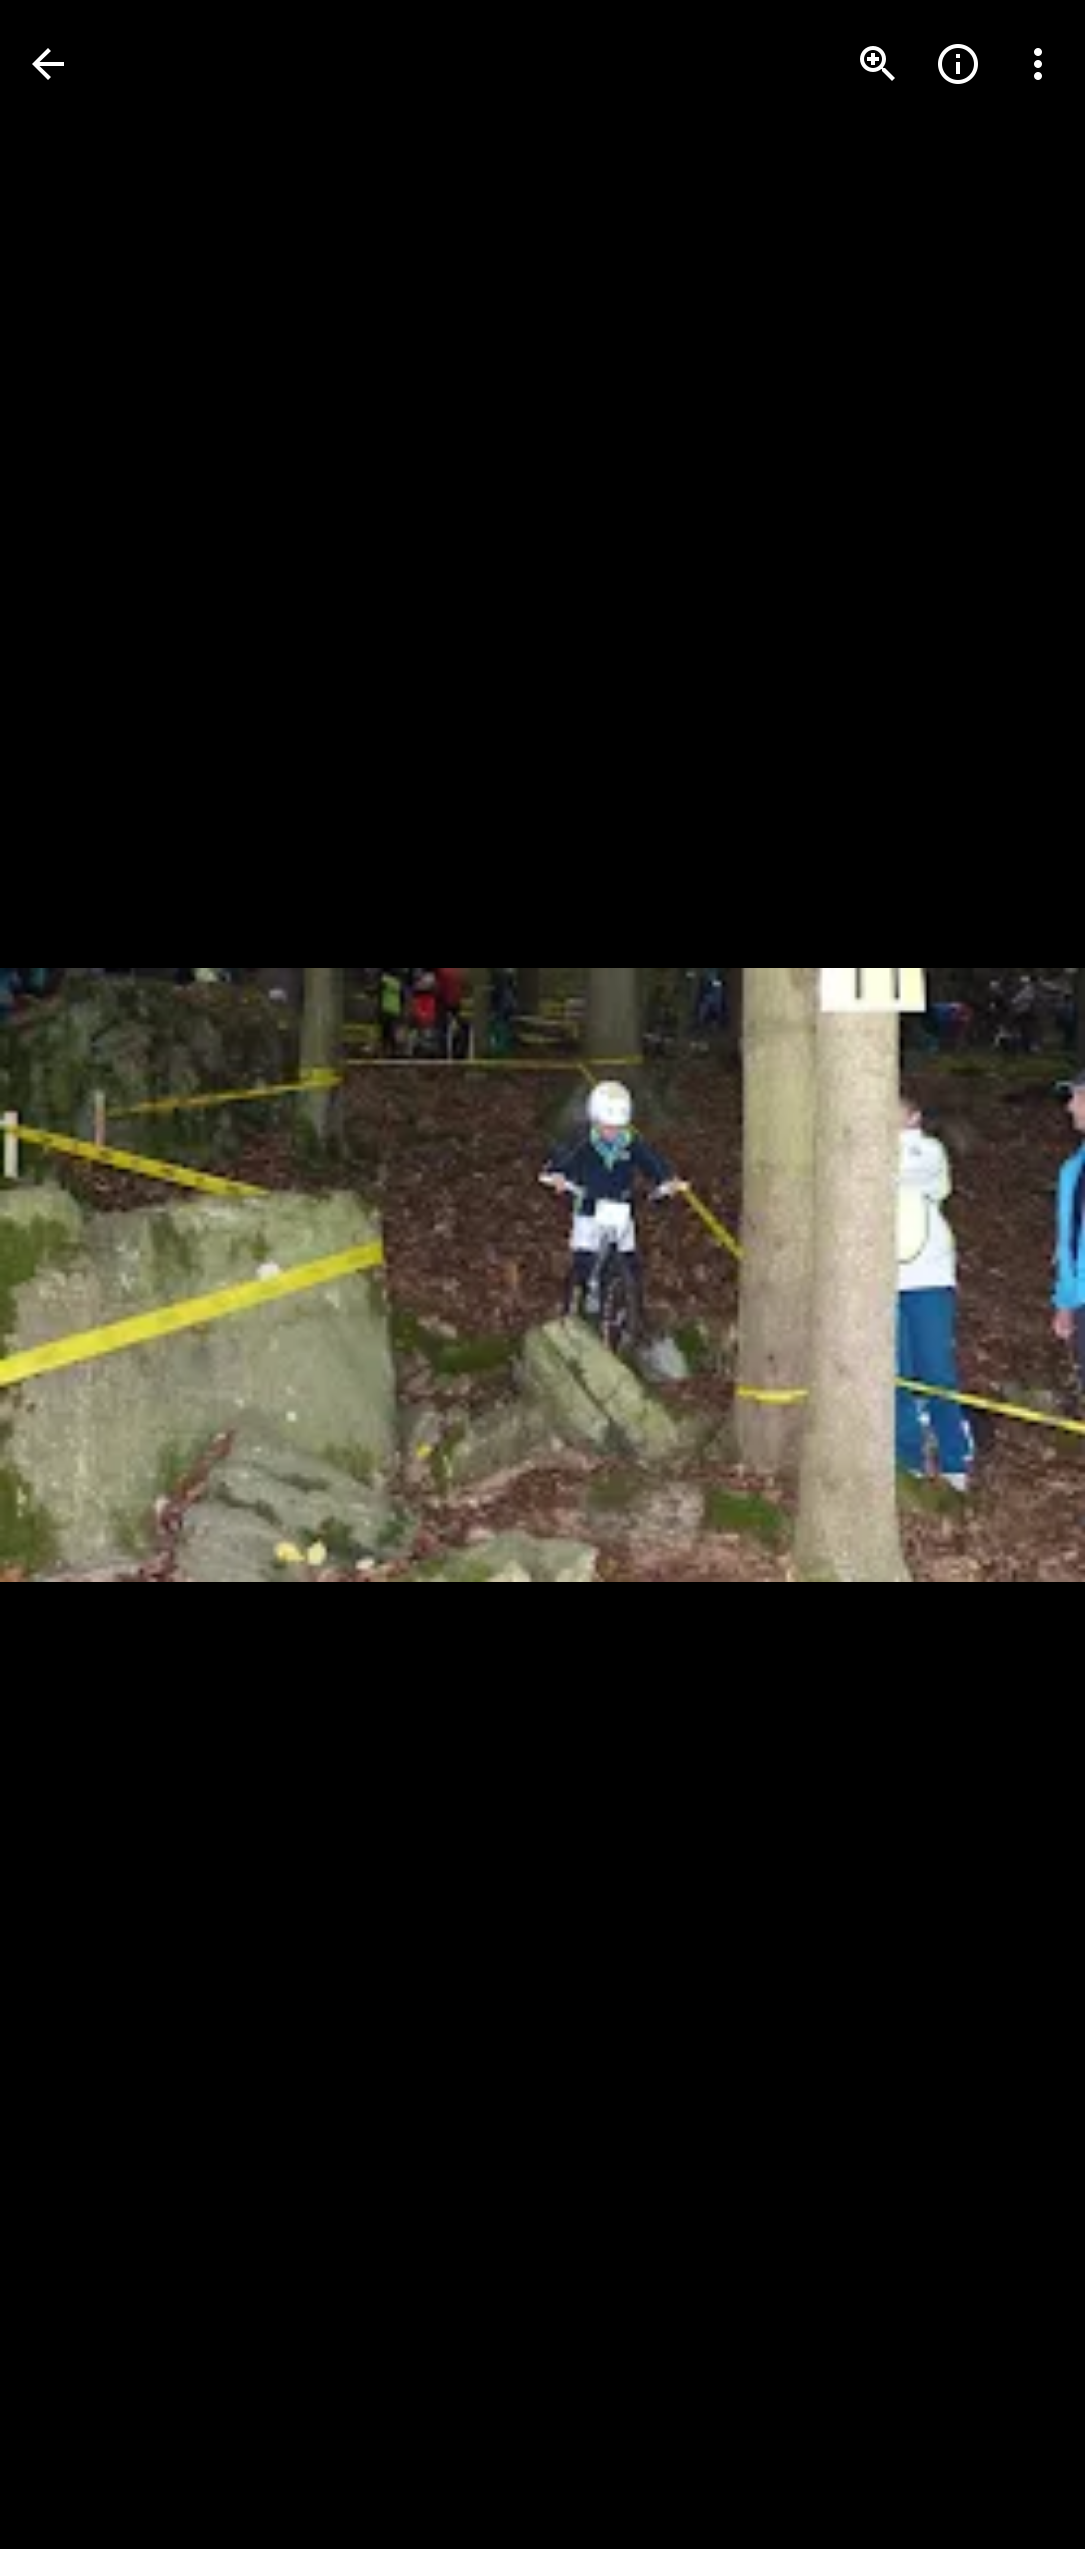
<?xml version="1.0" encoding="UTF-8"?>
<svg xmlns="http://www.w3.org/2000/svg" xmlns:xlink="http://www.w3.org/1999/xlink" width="1085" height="2549">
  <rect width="100%" height="100%" fill="#000000" />
  <path d="M 64 62 h -24.5 l 11.5 -11 l -3 -3 l -16 16 l 16 16 l 3 -3 l -11.5 -11 h 24.5 z" fill="#ffffff" />
  <image x="860" y="46" width="35" height="35" xlink:href="image1.png" />
  <image x="938" y="44" width="40" height="40" xlink:href="image2.png" />
  <image x="1034" y="48" width="8" height="32" xlink:href="image3.png" />
  <image x="0" y="968" width="1085" height="614" xlink:href="image4.png" />
</svg>
